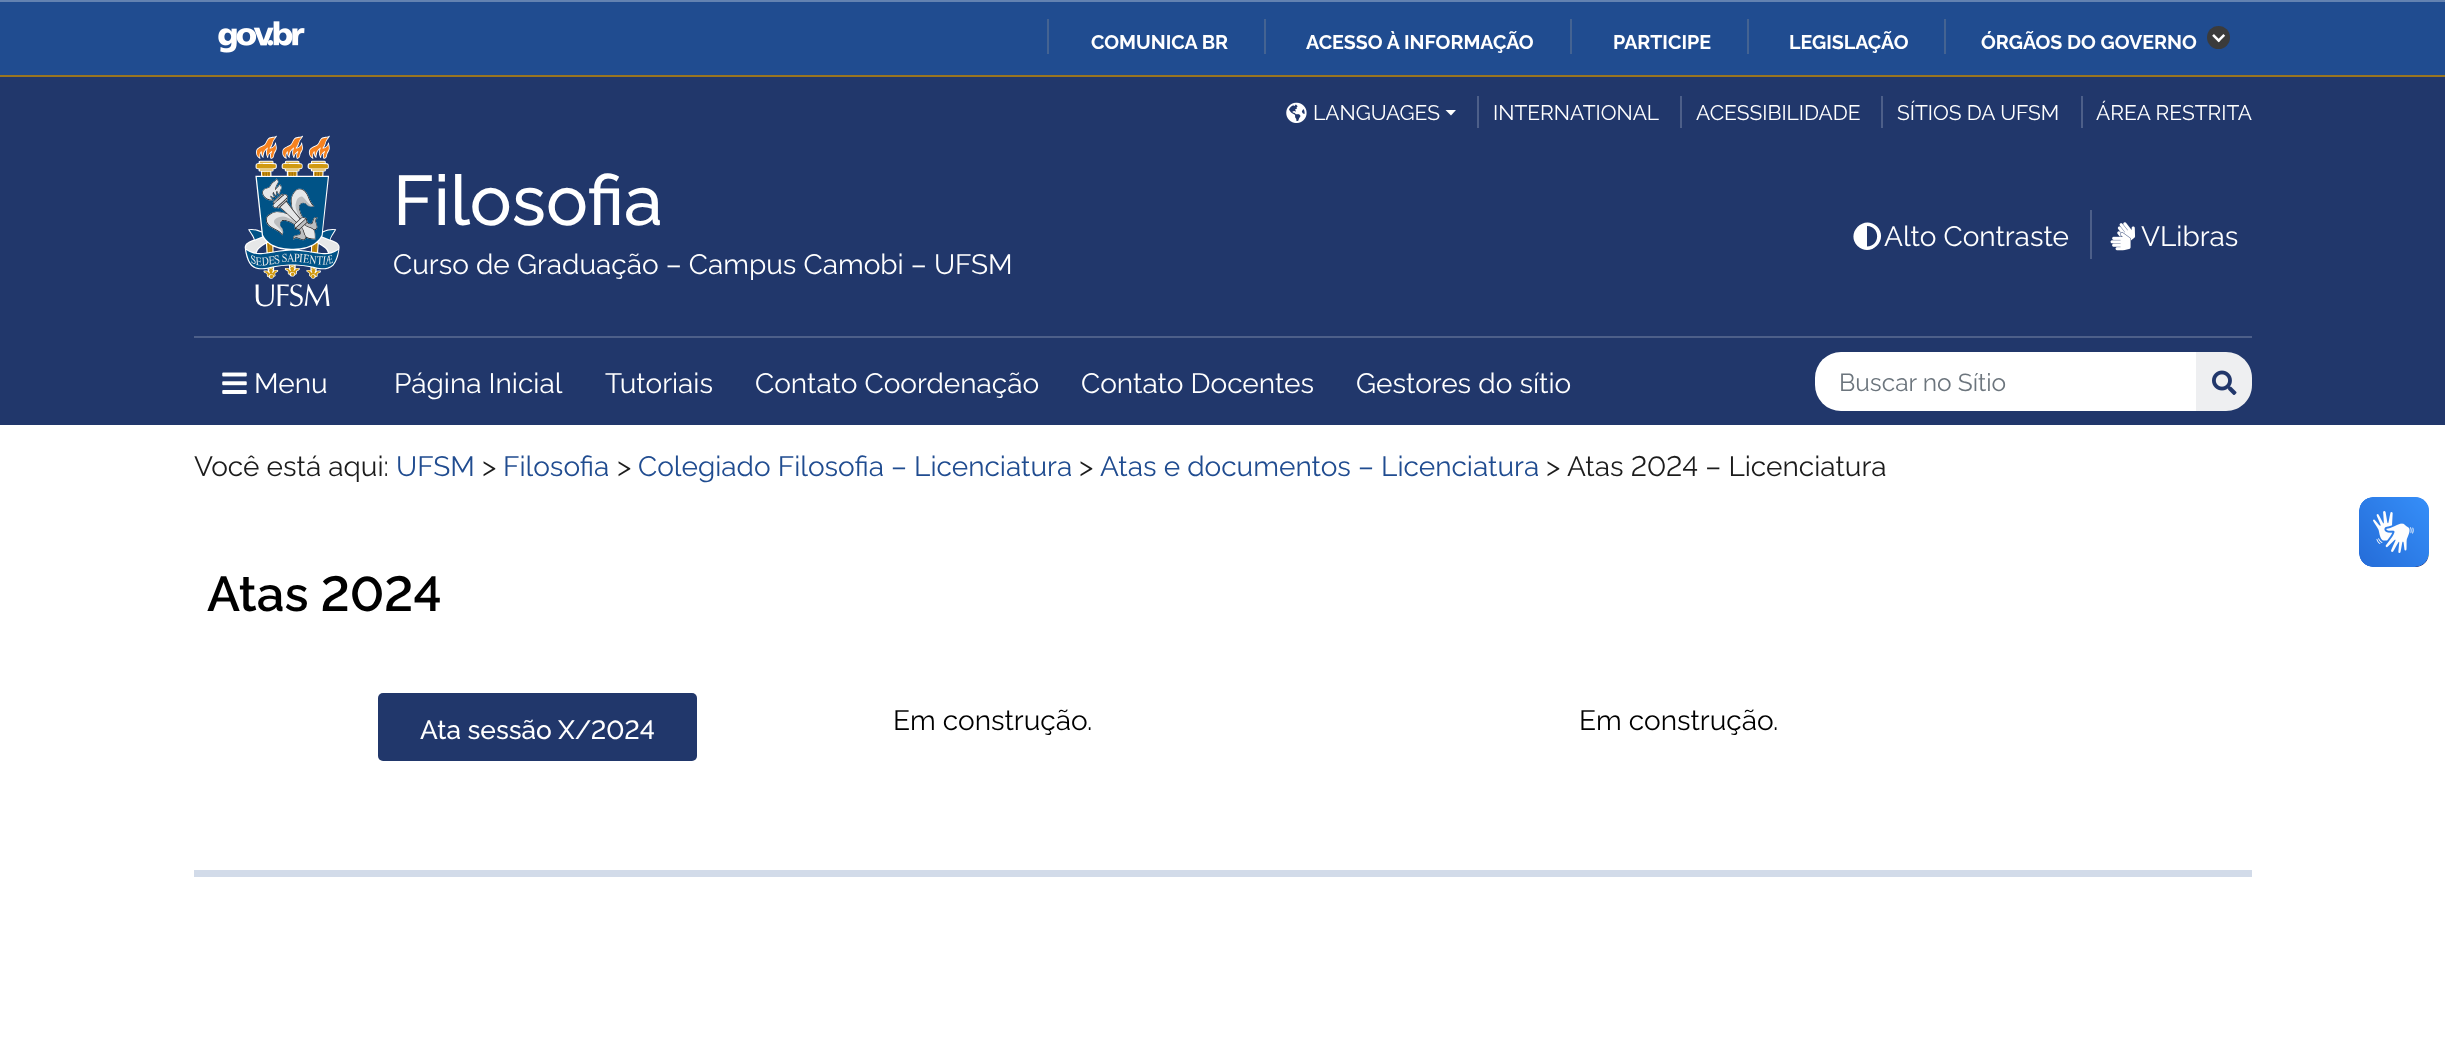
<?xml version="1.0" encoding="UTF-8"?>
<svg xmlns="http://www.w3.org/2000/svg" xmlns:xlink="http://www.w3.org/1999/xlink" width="2445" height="1063">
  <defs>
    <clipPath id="clip1"><rect x="1815" y="352" width="437" height="59" rx="26" /></clipPath>
  </defs>
  <rect width="100%" height="100%" fill="#ffffff" />
  <rect y="2" width="2445" height="73" fill="#204c90" />
  <rect width="2445" height="2" fill="#6382b1" />
  <image x="218" y="21" width="87" height="32" xlink:href="image1.png" />
  <rect x="1047" y="19" width="2" height="35" fill="#446392" />
  <rect x="1264" y="19" width="2" height="35" fill="#446392" />
  <rect x="1570" y="19" width="2" height="35" fill="#446392" />
  <rect x="1747" y="19" width="2" height="35" fill="#446392" />
  <rect x="1944" y="19" width="2" height="35" fill="#446392" />
  <circle cx="2218.5" cy="37.5" r="11.5" fill="#3b3b3b" />
  <image x="2212" y="34" width="14" height="9" xlink:href="image2.png" />
  <rect y="77" width="2445" height="348" fill="#21376b" />
  <rect y="75" width="2445" height="2" fill="#997520" />
  <image x="1286" y="102" width="21" height="21" xlink:href="image3.png" />
  <path d="M 1445.5 110 h 10.5 l -5 5.5 z" fill="#ffffff" />
  <rect x="1477" y="96" width="2" height="32" fill="#4d5f89" />
  <rect x="1680" y="96" width="2" height="32" fill="#4d5f89" />
  <rect x="1881" y="96" width="2" height="32" fill="#4d5f89" />
  <rect x="2081" y="96" width="2" height="32" fill="#4d5f89" />
  <rect x="194" y="336" width="2058" height="2" fill="#4d5f89" />
  <image x="244" y="135" width="96" height="172" xlink:href="image4.png" />
  <path d="M 1857.5 246 c -12.5 -13 6.5 -32 19.5 -19.5 c 12.5 13 -6.5 32 -19.5 19.5 z m 9.5 0.5 c 13.5 0 13.5 -20.5 0 -20.5 z" fill="#ffffff" />
  <rect x="2090" y="210" width="2" height="49" fill="#4d5f89" />
  <image x="2110" y="222" width="26" height="29" xlink:href="image5.png" />
  <image x="222" y="372" width="25" height="22" xlink:href="image6.png" />
  <g clip-path="url(#clip1)">
    <path d="M 1820 352 h 378 v 59 h -378 c -4 0 -7 -3 -7 -7 v -45 c 0 -4 3 -7 7 -7 z" fill="#ffffff" />
  </g>
  <path d="M 2196 352 h 30 c 14.5 0 26 11.5 26 26 v 7 c 0 14.5 -11.5 26 -26 26 h -30 z" fill="#eeeff1" />
  <image x="2212" y="370" width="25" height="25" xlink:href="image7.png" />
  <rect x="378" y="693" width="319" height="68" rx="5" fill="#21376b" />
  <rect x="194" y="870" width="2058" height="7" fill="#d2dbe9" />
  <image x="2359" y="497" width="70" height="70" xlink:href="image8.png" />
  <image x="2359" y="497" width="70" height="70" xlink:href="image9.png" />
  <text x="1091" y="49" style="font-family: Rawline; font-size: 19.6px; font-weight: bold; fill: #ffffff">COMUNICA BR</text>
  <text x="1306" y="49" style="font-family: Rawline; font-size: 19.6px; font-weight: bold; fill: #ffffff">ACESSO À INFORMAÇÃO</text>
  <text x="1613" y="49" style="font-family: Rawline; font-size: 19.6px; font-weight: bold; fill: #ffffff">PARTICIPE</text>
  <text x="1789" y="49" style="font-family: Rawline; font-size: 19.6px; font-weight: bold; fill: #ffffff">LEGISLAÇÃO</text>
  <text x="1981" y="49" style="font-family: Rawline; font-size: 19.6px; font-weight: bold; fill: #ffffff">ÓRGÃOS DO GOVERNO</text>
  <text x="1313" y="120" style="font-family: Rawline; font-size: 21px; fill: #ffffff">LANGUAGES</text>
  <text x="1493" y="120" style="font-family: Rawline; font-size: 21px; fill: #ffffff">INTERNATIONAL</text>
  <text x="1696" y="120" style="font-family: Rawline; font-size: 21px; fill: #ffffff">ACESSIBILIDADE</text>
  <text x="1897" y="120" style="font-family: Rawline; font-size: 21px; fill: #ffffff">SÍTIOS DA UFSM</text>
  <text x="2096" y="120" style="font-family: Rawline; font-size: 21px; fill: #ffffff">ÁREA RESTRITA</text>
  <text x="393" y="225" style="font-family: Rawline; font-size: 70px; font-weight: 500; fill: #ffffff">Filosofia</text>
  <text x="393" y="274" style="font-family: Rawline; font-size: 28px; fill: #ffffff">Curso de Graduação – Campus Camobi – UFSM</text>
  <text x="1884" y="246" style="font-family: Rawline; font-size: 28px; fill: #ffffff">Alto Contraste</text>
  <text x="2141" y="246" style="font-family: Rawline; font-size: 28px; fill: #ffffff">VLibras</text>
  <text x="254" y="393" style="font-family: Rawline; font-size: 28px; fill: #ffffff">Menu</text>
  <text x="394" y="393" style="font-family: Rawline; font-size: 28px; fill: #ffffff">Página Inicial</text>
  <text x="605" y="393" style="font-family: Rawline; font-size: 28px; fill: #ffffff">Tutoriais</text>
  <text x="755" y="393" style="font-family: Rawline; font-size: 28px; fill: #ffffff">Contato Coordenação</text>
  <text x="1081" y="393" style="font-family: Rawline; font-size: 28px; fill: #ffffff">Contato Docentes</text>
  <text x="1356" y="393" style="font-family: Rawline; font-size: 28px; fill: #ffffff">Gestores do sítio</text>
  <text x="1839" y="391" style="font-family: Rawline; font-size: 24.5px; fill: #6c757d">Buscar no Sítio</text>
  <text x="194" y="476" style="font-family: Rawline; font-size: 28px; fill: #1c1c1c">Você está aqui:</text>
  <text x="396" y="476" style="font-family: Rawline; font-size: 28px; fill: #204c90">UFSM</text>
  <text x="482" y="476" style="font-family: Rawline; font-size: 28px; fill: #1c1c1c">&gt;</text>
  <text x="503" y="476" style="font-family: Rawline; font-size: 28px; fill: #204c90">Filosofia</text>
  <text x="617" y="476" style="font-family: Rawline; font-size: 28px; fill: #1c1c1c">&gt;</text>
  <text x="638" y="476" style="font-family: Rawline; font-size: 28px; fill: #204c90">Colegiado Filosofia – Licenciatura</text>
  <text x="1079" y="476" style="font-family: Rawline; font-size: 28px; fill: #1c1c1c">&gt;</text>
  <text x="1100" y="476" style="font-family: Rawline; font-size: 28px; fill: #204c90">Atas e documentos – Licenciatura</text>
  <text x="1546" y="476" style="font-family: Rawline; font-size: 28px; fill: #1c1c1c">&gt;</text>
  <text x="1567" y="476" style="font-family: Rawline; font-size: 28px; fill: #1c1c1c">Atas 2024 – Licenciatura</text>
  <text x="207" y="611" style="font-family: Rawline; font-size: 49px; font-weight: 600; fill: #000000">Atas 2024</text>
  <text x="420" y="739" style="font-family: Rawline; font-size: 26.25px; font-weight: 500; fill: #ffffff">Ata sessão X/2024</text>
  <text x="893" y="730" style="font-family: Rawline; font-size: 28px; fill: #000000">Em construção.</text>
  <text x="1579" y="730" style="font-family: Rawline; font-size: 28px; fill: #000000">Em construção.</text>
</svg>
